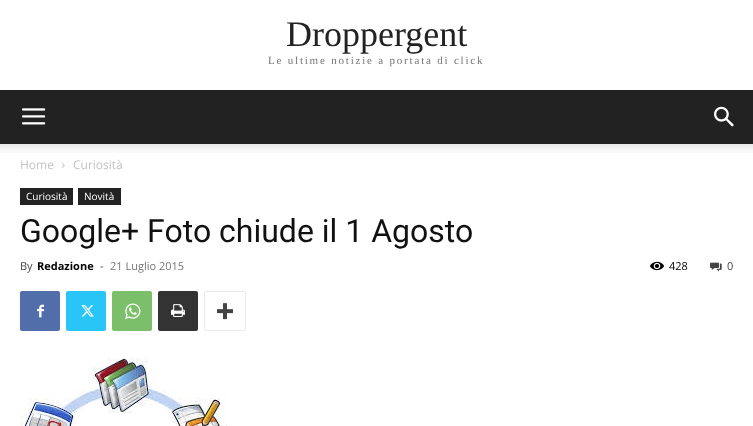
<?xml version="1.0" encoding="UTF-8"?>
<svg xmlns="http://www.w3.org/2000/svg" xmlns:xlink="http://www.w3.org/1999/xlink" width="753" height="426">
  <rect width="100%" height="100%" fill="#ffffff" />
  <rect y="90" width="753" height="54" fill="#222222" />
  <image x="22" y="108" width="24" height="17" xlink:href="image1.png" />
  <image x="714" y="106" width="20" height="21" xlink:href="image2.png" />
  <image x="0" y="144" width="753" height="9" xlink:href="image3.png" />
  <image x="62" y="163" width="3" height="5" xlink:href="image4.png" />
  <rect x="20" y="188" width="53" height="17" fill="#222222" />
  <rect x="78" y="188" width="43" height="17" fill="#222222" />
  <image x="650" y="261" width="14" height="10" xlink:href="image5.png" />
  <image x="710" y="262" width="12" height="10" xlink:href="image6.png" />
  <rect x="20" y="291" width="40" height="40" rx="2" fill="#516eab" />
  <image x="37" y="304" width="7" height="14" xlink:href="image7.png" />
  <rect x="66" y="291" width="40" height="40" rx="2" fill="#29c5f6" />
  <image x="81" y="305" width="13" height="12" xlink:href="image8.png" />
  <rect x="112" y="291" width="40" height="40" rx="2" fill="#7bbf6a" />
  <image x="125" y="303" width="16" height="16" xlink:href="image9.png" />
  <rect x="158" y="291" width="40" height="40" rx="2" fill="#333333" />
  <image x="171" y="304" width="14" height="13" xlink:href="image10.png" />
  <rect x="204.5" y="291.5" width="41" height="39" rx="1.5" fill="none" stroke="#e9e9e9" />
  <image x="217" y="303" width="16" height="17" xlink:href="image11.png" />
  <image x="20" y="358" width="208" height="68" xlink:href="image12.png" />
  <text x="286" y="46" style="font-family: Liberation Serif; font-size: 36px; fill: #222222">Droppergent</text>
  <text x="268" y="64" style="font-family: Liberation Serif; font-size: 11px; letter-spacing: 1.8px; fill: #767676">Le ultime notizie a portata di click</text>
  <text x="20" y="169" style="font-family: Open Sans; font-size: 12px; fill: #c3c3c3">Home</text>
  <text x="73" y="169" style="font-family: Open Sans; font-size: 12px; fill: #c3c3c3">Curiosità</text>
  <text x="26" y="200" style="font-family: Open Sans; font-size: 10px; fill: #ffffff">Curiosità</text>
  <text x="84" y="200" style="font-family: Open Sans; font-size: 10px; fill: #ffffff">Novità</text>
  <text x="20" y="242" style="font-family: Roboto; font-size: 32px; fill: #111111">Google+ Foto chiude il 1 Agosto</text>
  <text x="20" y="270" style="font-family: Open Sans; font-size: 11px; fill: #444444">By</text>
  <text x="37" y="270" style="font-family: Open Sans; font-size: 11px; font-weight: bold; fill: #000000">Redazione</text>
  <text x="100" y="270" style="font-family: Open Sans; font-size: 11px; fill: #444444">-</text>
  <text x="110" y="270" style="font-family: Open Sans; font-size: 11px; fill: #767676">21 Luglio 2015</text>
  <text x="669" y="270" style="font-family: Open Sans; font-size: 11px; fill: #000000">428</text>
  <text x="727" y="270" style="font-family: Open Sans; font-size: 11px; fill: #444444">0</text>
</svg>
